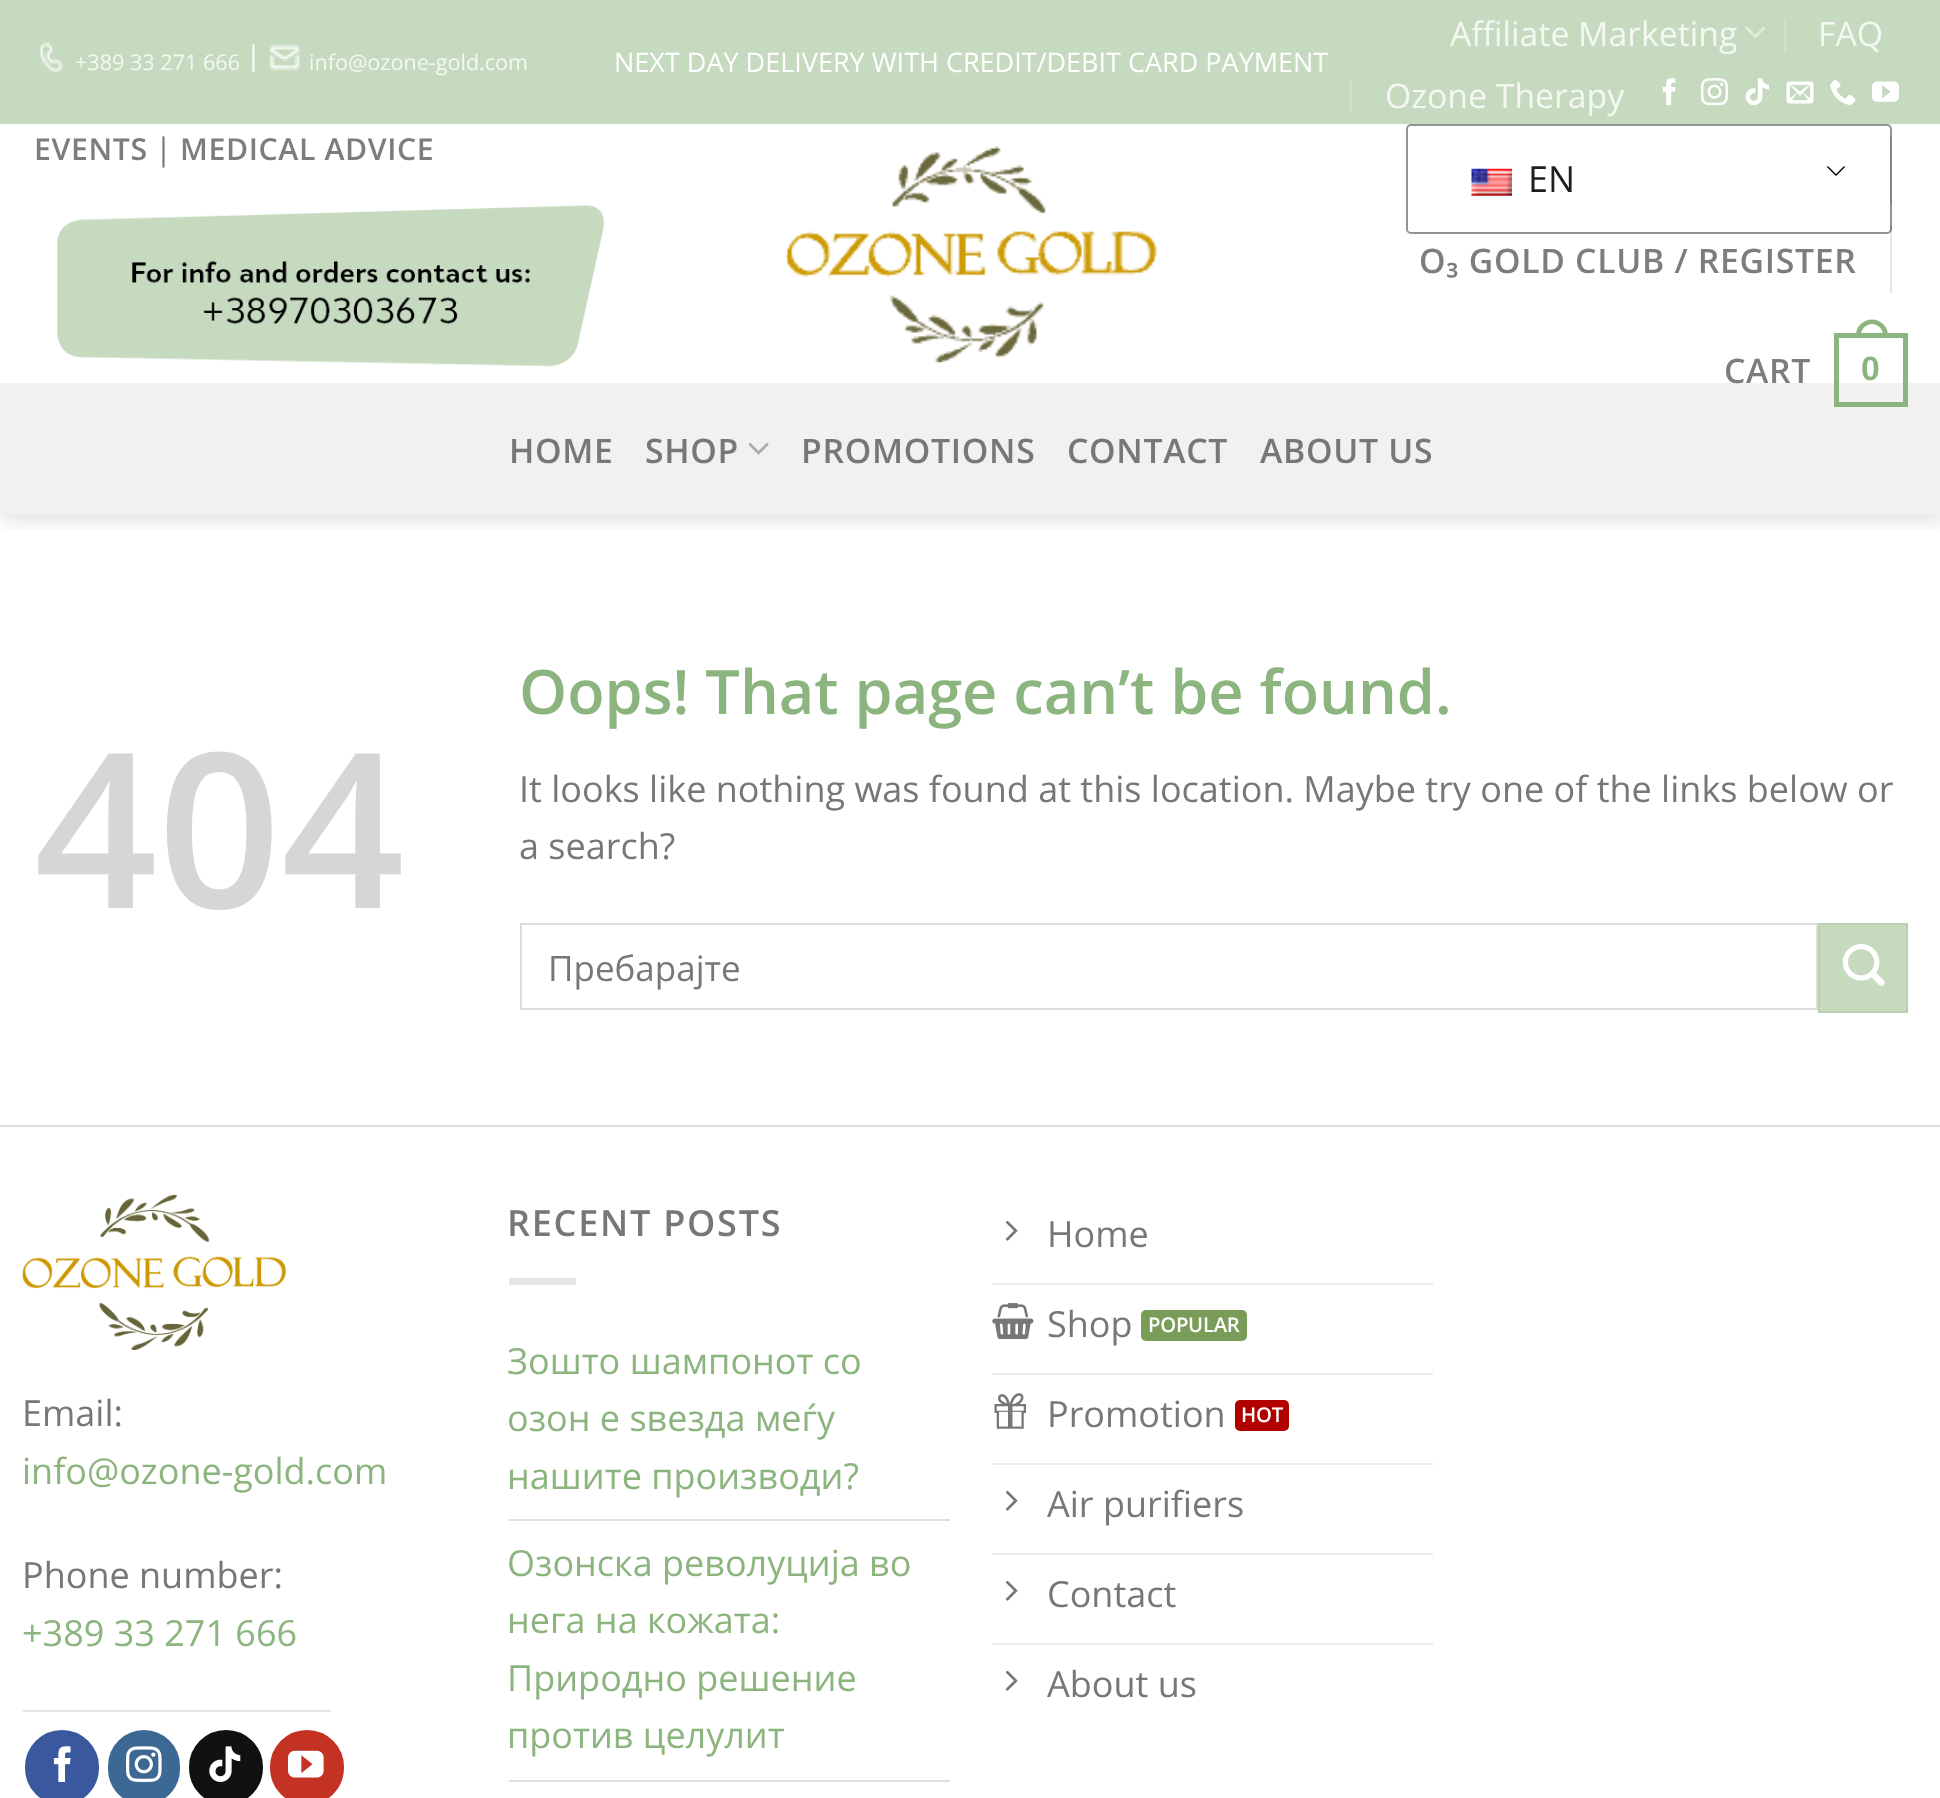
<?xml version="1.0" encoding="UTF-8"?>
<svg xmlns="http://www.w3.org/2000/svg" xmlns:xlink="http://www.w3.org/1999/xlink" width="1940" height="1798">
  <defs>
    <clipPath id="clip1"><rect x="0" y="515" width="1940" height="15" /></clipPath>
  </defs>
  <rect width="100%" height="100%" fill="#ffffff" />
  <g clip-path="url(#clip1)">
    <rect x="2" y="2" width="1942" height="516" fill="#000000" fill-opacity="0.15" filter="blur(11px)" />
  </g>
  <rect width="1940" height="124" fill="#c6dabf" />
  <image x="38" y="42" width="26" height="31" xlink:href="image1.png" />
  <image x="269" y="44" width="31" height="27" xlink:href="image2.png" />
  <image x="1745" y="26" width="21" height="13" xlink:href="image3.png" />
  <rect x="1784" y="18" width="2" height="34" fill="#d1e1cc" />
  <rect x="1350" y="79" width="2" height="34" fill="#d1e1cc" />
  <image x="1662" y="78" width="14" height="28" xlink:href="image4.png" />
  <image x="1701" y="78" width="27" height="28" xlink:href="image5.png" />
  <image x="1745" y="78" width="24" height="28" xlink:href="image6.png" />
  <image x="1786" y="81" width="28" height="23" xlink:href="image7.png" />
  <image x="1830" y="80" width="26" height="26" xlink:href="image8.png" />
  <image x="1872" y="81" width="27" height="21" xlink:href="image9.png" />
  <image x="57" y="205" width="548" height="162" xlink:href="image10.png" />
  <image x="785" y="146" width="372" height="217" xlink:href="image11.png" />
  <image x="1827" y="166" width="18" height="10" xlink:href="image12.png" />
  <rect x="1407" y="125" width="484" height="108" rx="4" fill="none" stroke="#949494" stroke-width="2" />
  <image x="1471" y="168" width="41" height="28" xlink:href="image13.png" />
  <rect x="1890" y="137" width="2" height="68" fill="#858585" />
  <rect x="1890" y="225" width="2" height="68" fill="#000000" fill-opacity="0.1" />
  <rect y="383" width="1940" height="132" fill="#f1f1f1" />
  <rect x="1836.5" y="335.5" width="69" height="69" fill="none" stroke="#8cb47e" stroke-width="5" />
  <path d="M 1872 319.5 c 8.5 0 16 7 16 15.5 v 2.5 h -32 v -2.5 c 0 -8.5 7.5 -15.5 16 -15.5 z m 0 4.5 c 6 0 11 5 11 11 v 2.5 h -22 v -2.5 c 0 -6 5 -11 11 -11 z" fill="#8cb47e" fill-rule="evenodd" />
  <image x="748" y="443" width="21" height="12" xlink:href="image14.png" />
  <rect x="521" y="924" width="1296" height="85" fill="none" stroke="#dddddd" stroke-width="2" />
  <rect x="1819" y="924" width="88" height="88" fill="#c6dabf" stroke="#bccfb5" stroke-width="2" />
  <image x="1842" y="944" width="43" height="42" xlink:href="image15.png" />
  <rect y="1125" width="1940" height="2" fill="#dddddd" />
  <image x="22" y="1194" width="264" height="156" xlink:href="image16.png" />
  <rect x="23" y="1710" width="308" height="2" fill="#e6e6e6" />
  <rect x="26" y="1731" width="72" height="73" rx="36" fill="#3a589d" stroke="#3a589d" stroke-width="2" />
  <image x="53" y="1746" width="18" height="36" xlink:href="image17.png" />
  <rect x="109" y="1731" width="70" height="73" rx="35" fill="#3b6994" stroke="#3b6994" stroke-width="2" />
  <image x="126" y="1746" width="36" height="36" xlink:href="image18.png" />
  <rect x="190" y="1731" width="72" height="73" rx="36" fill="#111111" stroke="#111111" stroke-width="2" />
  <image x="209" y="1746" width="32" height="36" xlink:href="image19.png" />
  <rect x="271" y="1731" width="72" height="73" rx="36" fill="#c33223" stroke="#c33223" stroke-width="2" />
  <image x="288" y="1750" width="36" height="28" xlink:href="image20.png" />
  <rect x="509" y="1278" width="67" height="7" fill="#e6e6e6" />
  <rect x="509" y="1519" width="441" height="2" fill="#dfdfdf" />
  <rect x="509" y="1780" width="441" height="2" fill="#dfdfdf" />
  <rect x="992" y="1283" width="441" height="2" fill="#ececec" />
  <image x="1005" y="1220" width="13" height="21" xlink:href="image21.png" />
  <rect x="992" y="1373" width="441" height="2" fill="#ececec" />
  <image x="992" y="1303" width="42" height="37" xlink:href="image22.png" />
  <rect x="1141" y="1310" width="106" height="31" rx="5" fill="#7a9c59" />
  <rect x="992" y="1463" width="441" height="2" fill="#ececec" />
  <image x="994" y="1393" width="32" height="36" xlink:href="image23.png" />
  <rect x="1235" y="1400" width="54" height="31" rx="5" fill="#b20000" />
  <rect x="992" y="1553" width="441" height="2" fill="#ececec" />
  <image x="1005" y="1490" width="13" height="21" xlink:href="image21.png" />
  <rect x="992" y="1643" width="441" height="2" fill="#ececec" />
  <image x="1005" y="1580" width="13" height="21" xlink:href="image21.png" />
  <image x="1005" y="1670" width="13" height="21" xlink:href="image21.png" />
  <text x="75" y="70" style="font-family: Open Sans; font-size: 21.6px; fill: #f4f8f2">+389 33 271 666</text>
  <text x="246" y="65" style="font-family: Open Sans; font-size: 27px; fill: #ffffff">|</text>
  <text x="309" y="70" style="font-family: Open Sans; font-size: 21.6px; fill: #f4f8f2">info@ozone-gold.com</text>
  <text x="614" y="72" style="font-family: Open Sans; font-size: 27px; fill: #ffffff">NEXT DAY DELIVERY WITH CREDIT/DEBIT CARD PAYMENT</text>
  <text x="1450" y="46" style="font-family: Open Sans; font-size: 33.75px; fill: #f4f8f2">Affiliate Marketing</text>
  <text x="1818" y="46" style="font-family: Open Sans; font-size: 33.75px; fill: #f4f8f2">FAQ</text>
  <text x="1385" y="108" style="font-family: Open Sans; font-size: 33.75px; fill: #f4f8f2">Ozone Therapy</text>
  <text x="34" y="160" style="font-family: Open Sans; font-size: 30.25px; font-weight: 600; letter-spacing: 0.6px; fill: #7d7d7d">EVENTS</text>
  <text x="155" y="160" style="font-family: Open Sans; font-size: 31px; fill: #777777">|</text>
  <text x="180" y="160" style="font-family: Open Sans; font-size: 30.25px; font-weight: 600; letter-spacing: 0.6px; fill: #7d7d7d">MEDICAL ADVICE</text>
  <text x="1528" y="192" style="font-family: Open Sans; font-size: 36px; fill: #1e1e1e">EN</text>
  <text x="1419" y="273" style="font-family: Open Sans; font-size: 33.75px; font-weight: 600; letter-spacing: 0.7px; fill: #7d7d7d">O₃ GOLD CLUB / REGISTER</text>
  <text x="1724" y="383" style="font-family: Open Sans; font-size: 33.75px; font-weight: 600; letter-spacing: 0.7px; fill: #7d7d7d">CART</text>
  <text x="1861" y="380" style="font-family: Liberation Sans; font-size: 33.75px; font-weight: bold; letter-spacing: 0.7px; fill: #8cb47e">0</text>
  <text x="509" y="463" style="font-family: Open Sans; font-size: 33.75px; font-weight: 600; letter-spacing: 0.7px; fill: #777777">HOME</text>
  <text x="645" y="463" style="font-family: Open Sans; font-size: 33.75px; font-weight: 600; letter-spacing: 0.7px; fill: #777777">SHOP</text>
  <text x="801" y="463" style="font-family: Open Sans; font-size: 33.75px; font-weight: 600; letter-spacing: 0.7px; fill: #777777">PROMOTIONS</text>
  <text x="1067" y="463" style="font-family: Open Sans; font-size: 33.75px; font-weight: 600; letter-spacing: 0.7px; fill: #777777">CONTACT</text>
  <text x="1260" y="463" style="font-family: Open Sans; font-size: 33.75px; font-weight: 600; letter-spacing: 0.7px; fill: #777777">ABOUT US</text>
  <text x="34" y="908" style="font-family: Open Sans; font-size: 216px; font-weight: 600; fill: #d6d6d6">404</text>
  <text x="519" y="714" style="font-family: Open Sans; font-size: 61.25px; font-weight: 600; fill: #8cb47e">Oops! That page can’t be found.</text>
  <text x="519" y="802" style="font-family: Open Sans; font-size: 36px; fill: #777777">It looks like nothing was found at this location. Maybe try one of the links below or</text>
  <text x="519" y="859" style="font-family: Open Sans; font-size: 36px; fill: #777777">a search?</text>
  <text x="548" y="981" style="font-family: Open Sans; font-size: 35px; fill: #777777">Пребарајте</text>
  <text x="22" y="1426" style="font-family: Open Sans; font-size: 36px; fill: #777777">Email:</text>
  <text x="22" y="1484" style="font-family: Open Sans; font-size: 36px; fill: #8cb47e">info@ozone-gold.com</text>
  <text x="22" y="1588" style="font-family: Open Sans; font-size: 36px; fill: #777777">Phone number:</text>
  <text x="22" y="1646" style="font-family: Open Sans; font-size: 36px; fill: #8cb47e">+389 33 271 666</text>
  <text x="507" y="1236" style="font-family: Open Sans; font-size: 36px; font-weight: 600; letter-spacing: 1.75px; fill: #777777">RECENT POSTS</text>
  <text x="507" y="1374" style="font-family: Open Sans; font-size: 36px; fill: #8cb47e">Зошто шампонот со</text>
  <text x="507" y="1431" style="font-family: Open Sans; font-size: 36px; fill: #8cb47e">озон е ѕвезда меѓу</text>
  <text x="507" y="1489" style="font-family: Open Sans; font-size: 36px; fill: #8cb47e">нашите производи?</text>
  <text x="507" y="1576" style="font-family: Open Sans; font-size: 36px; fill: #8cb47e">Озонска револуција во</text>
  <text x="507" y="1633" style="font-family: Open Sans; font-size: 36px; fill: #8cb47e">нега на кожата:</text>
  <text x="507" y="1691" style="font-family: Open Sans; font-size: 36px; fill: #8cb47e">Природно решение</text>
  <text x="507" y="1748" style="font-family: Open Sans; font-size: 36px; fill: #8cb47e">против целулит</text>
  <text x="1047" y="1247" style="font-family: Open Sans; font-size: 36px; fill: #777777">Home</text>
  <text x="1047" y="1337" style="font-family: Open Sans; font-size: 36px; fill: #777777">Shop</text>
  <text x="1148" y="1332" style="font-family: Open Sans; font-size: 20.25px; font-weight: 600; letter-spacing: -0.25px; fill: #ffffff">POPULAR</text>
  <text x="1047" y="1427" style="font-family: Open Sans; font-size: 36px; fill: #777777">Promotion</text>
  <text x="1241" y="1422" style="font-family: Open Sans; font-size: 20.25px; font-weight: 600; letter-spacing: -0.25px; fill: #ffffff">HOT</text>
  <text x="1047" y="1517" style="font-family: Open Sans; font-size: 36px; fill: #777777">Air purifiers</text>
  <text x="1047" y="1607" style="font-family: Open Sans; font-size: 36px; fill: #777777">Contact</text>
  <text x="1047" y="1697" style="font-family: Open Sans; font-size: 36px; fill: #777777">About us</text>
</svg>
